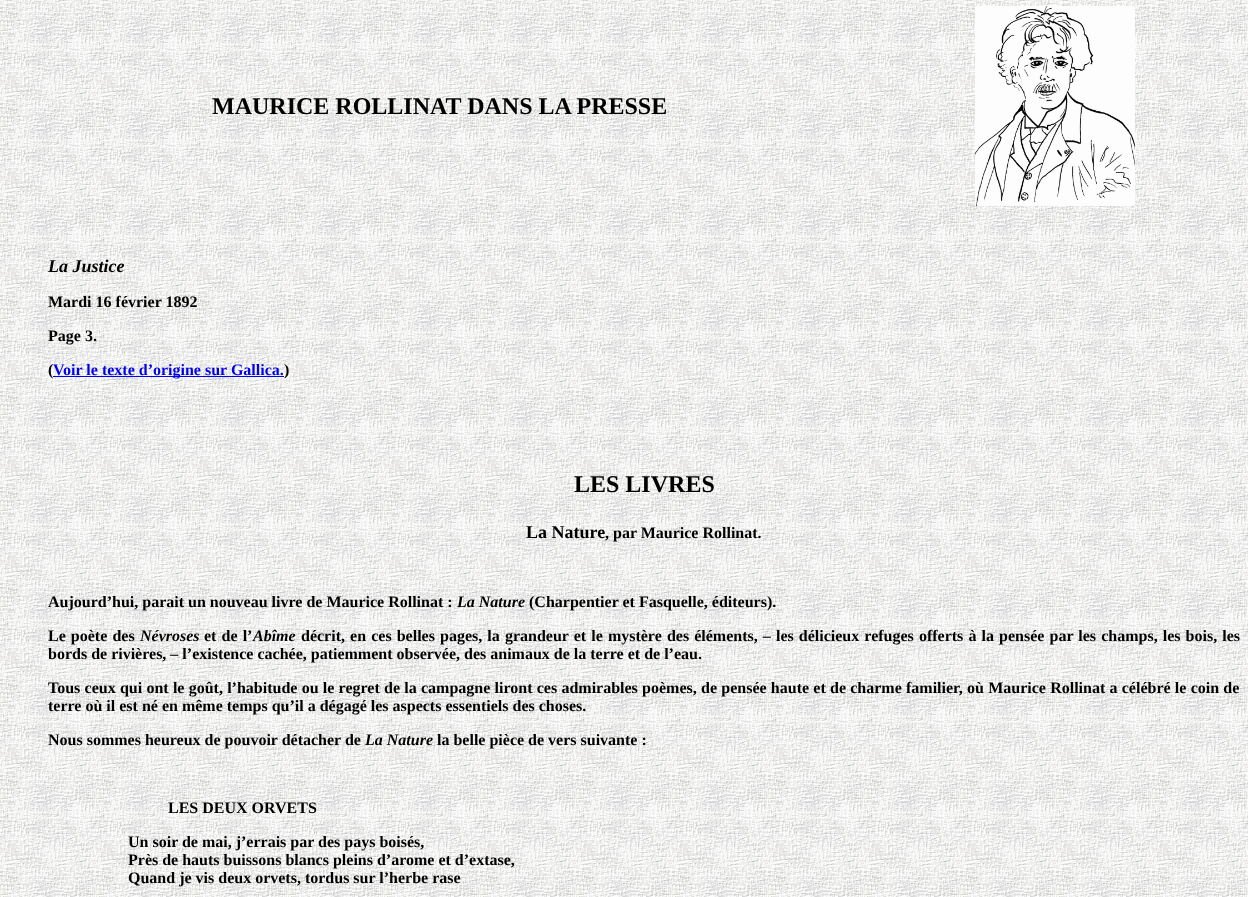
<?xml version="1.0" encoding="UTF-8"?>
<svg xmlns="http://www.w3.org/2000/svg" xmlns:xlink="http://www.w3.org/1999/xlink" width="1248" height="897">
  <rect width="100%" height="100%" fill="#ffffff" />
  <image x="0" y="0" width="1248" height="897" xlink:href="image1.png" />
  <image x="975" y="6" width="160" height="200" xlink:href="image2.png" />
  <rect x="53" y="376" width="231" height="1" fill="#0000ee" />
  <text x="212" y="114" style="font-family: Liberation Serif; font-size: 24px; font-weight: bold; fill: #000000">MAURICE ROLLINAT DANS LA PRESSE</text>
  <text x="48" y="272" style="font-family: Liberation Serif; font-size: 18px; font-weight: bold; font-style: italic; fill: #000000">La Justice</text>
  <text x="48" y="307" style="font-family: Liberation Serif; font-size: 16px; font-weight: bold; fill: #000000">Mardi 16 février 1892</text>
  <text x="48" y="341" style="font-family: Liberation Serif; font-size: 16px; font-weight: bold; fill: #000000">Page 3.</text>
  <text x="48" y="375" style="font-family: Liberation Serif; font-size: 16px; font-weight: bold; fill: #000000">(</text>
  <text x="53" y="375" style="font-family: Liberation Serif; font-size: 16px; font-weight: bold; fill: #0000ee">Voir le texte d’origine sur Gallica.</text>
  <text x="284" y="375" style="font-family: Liberation Serif; font-size: 16px; font-weight: bold; fill: #000000">)</text>
  <text x="574" y="492" style="font-family: Liberation Serif; font-size: 24px; font-weight: bold; fill: #000000">LES LIVRES</text>
  <text x="526" y="538" style="font-family: Liberation Serif; font-size: 18px; font-weight: bold; fill: #000000">La Nature</text>
  <text x="605" y="538" style="font-family: Liberation Serif; font-size: 16px; font-weight: bold; fill: #000000">, par Maurice Rollinat.</text>
  <text x="48" y="607" style="font-family: Liberation Serif; font-size: 16px; font-weight: bold; fill: #000000">Aujourd’hui, parait un nouveau livre de Maurice Rollinat :</text>
  <text x="457" y="607" style="font-family: Liberation Serif; font-size: 16px; font-weight: bold; font-style: italic; fill: #000000">La Nature</text>
  <text x="529" y="607" style="font-family: Liberation Serif; font-size: 16px; font-weight: bold; fill: #000000">(Charpentier et Fasquelle, éditeurs).</text>
  <text x="48" y="641" word-spacing="1.1" style="font-family: Liberation Serif; font-size: 16px; font-weight: bold; fill: #000000">Le poète des</text>
  <text x="140" y="641" style="font-family: Liberation Serif; font-size: 16px; font-weight: bold; font-style: italic; fill: #000000">Névroses</text>
  <text x="204" y="641" word-spacing="1.1" style="font-family: Liberation Serif; font-size: 16px; font-weight: bold; fill: #000000">et de l’</text>
  <text x="253" y="641" style="font-family: Liberation Serif; font-size: 16px; font-weight: bold; font-style: italic; fill: #000000">Abîme</text>
  <text x="301" y="641" word-spacing="1.1" style="font-family: Liberation Serif; font-size: 16px; font-weight: bold; fill: #000000">décrit, en ces belles pages, la grandeur et le mystère des éléments, – les délicieux refuges offerts à la pensée par les champs, les bois, les</text>
  <text x="48" y="659" style="font-family: Liberation Serif; font-size: 16px; font-weight: bold; fill: #000000">bords de rivières, – l’existence cachée, patiemment observée, des animaux de la terre et de l’eau.</text>
  <text x="48" y="693" word-spacing="0.25" style="font-family: Liberation Serif; font-size: 16px; font-weight: bold; fill: #000000">Tous ceux qui ont le goût, l’habitude ou le regret de la campagne liront ces admirables poèmes, de pensée haute et de charme familier, où Maurice Rollinat a célébré le coin de</text>
  <text x="48" y="711" style="font-family: Liberation Serif; font-size: 16px; font-weight: bold; fill: #000000">terre où il est né en même temps qu’il a dégagé les aspects essentiels des choses.</text>
  <text x="48" y="745" style="font-family: Liberation Serif; font-size: 16px; font-weight: bold; fill: #000000">Nous sommes heureux de pouvoir détacher de</text>
  <text x="365" y="745" style="font-family: Liberation Serif; font-size: 16px; font-weight: bold; font-style: italic; fill: #000000">La Nature</text>
  <text x="437" y="745" style="font-family: Liberation Serif; font-size: 16px; font-weight: bold; fill: #000000">la belle pièce de vers suivante :</text>
  <text x="168" y="813" style="font-family: Liberation Serif; font-size: 16px; font-weight: bold; fill: #000000">LES DEUX ORVETS</text>
  <text x="128" y="847" style="font-family: Liberation Serif; font-size: 16px; font-weight: bold; fill: #000000">Un soir de mai, j’errais par des pays boisés,</text>
  <text x="128" y="865" style="font-family: Liberation Serif; font-size: 16px; font-weight: bold; fill: #000000">Près de hauts buissons blancs pleins d’arome et d’extase,</text>
  <text x="128" y="883" style="font-family: Liberation Serif; font-size: 16px; font-weight: bold; fill: #000000">Quand je vis deux orvets, tordus sur l’herbe rase</text>
</svg>
